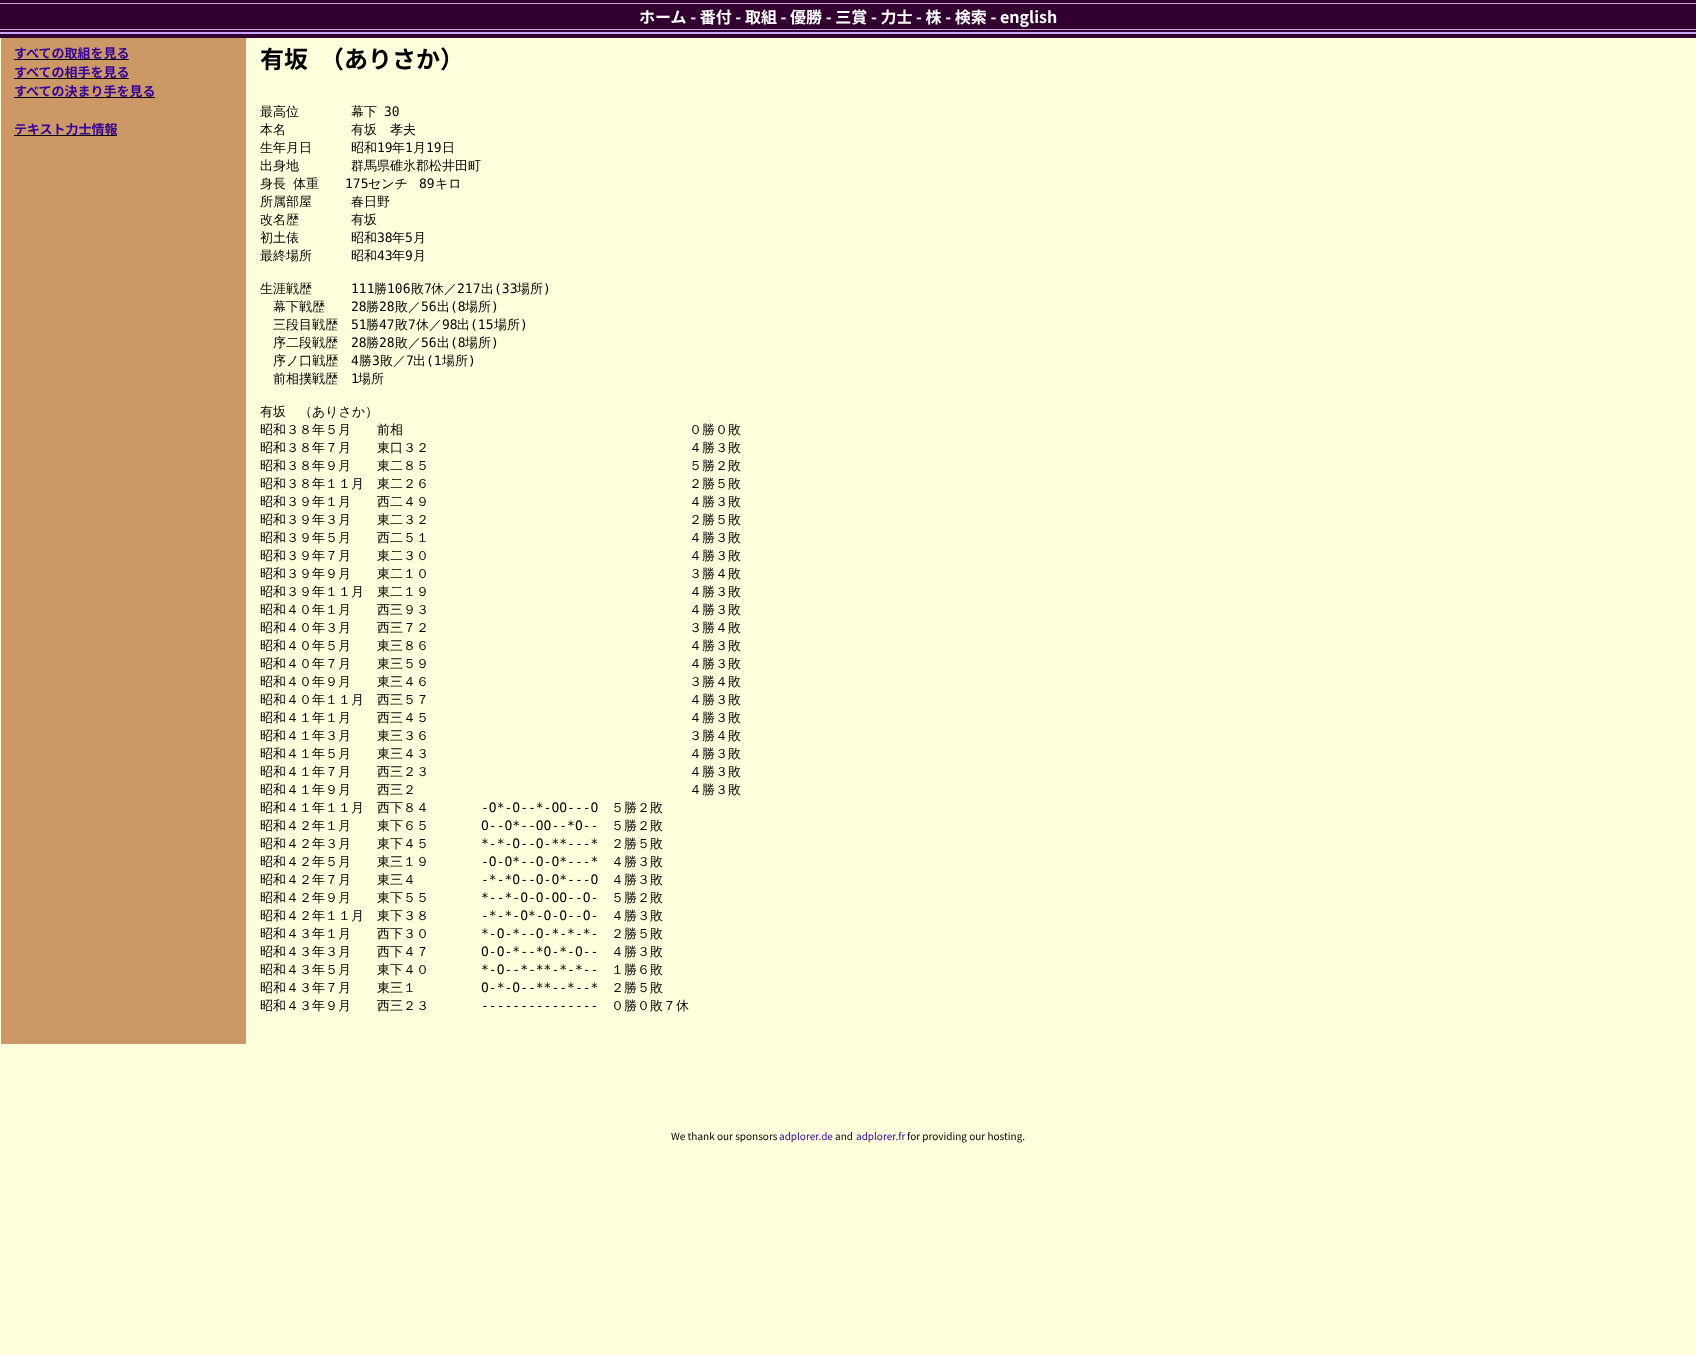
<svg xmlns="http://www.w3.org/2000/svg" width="1696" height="1355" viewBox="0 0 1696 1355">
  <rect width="100%" height="100%" fill="#ffffde"/>
  <rect x="0" y="0" width="1696" height="38" fill="#310031"/>
  <rect x="0" y="32" width="1696" height="2" fill="#cda5ff"/>
  <rect x="0" y="3" width="1696" height="1" fill="#cda5ff"/>
  <rect x="0" y="29" width="1696" height="1" fill="#cda5ff"/>
  <text x="639" y="23" font-family="Noto Sans CJK JP" font-size="16" font-weight="bold" fill="#ffffff">ホーム - 番付 - 取組 - 優勝 - 三賞 - 力士 - 株 - 検索 - english</text>
  <rect x="1" y="38" width="245" height="1006" fill="#cc9966"/>
  <rect x="14" y="59" width="115" height="1" fill="#000000"/>
  <text x="14" y="58" font-family="Noto Sans CJK JP" font-size="13" font-weight="bold" fill="#330099">すべての取組を見る</text>
  <rect x="14" y="78" width="115" height="1" fill="#000000"/>
  <text x="14" y="77" font-family="Noto Sans CJK JP" font-size="13" font-weight="bold" fill="#330099">すべての相手を見る</text>
  <rect x="14" y="97" width="141" height="1" fill="#000000"/>
  <text x="14" y="96" font-family="Noto Sans CJK JP" font-size="13" font-weight="bold" fill="#330099">すべての決まり手を見る</text>
  <rect x="14" y="135" width="103" height="1" fill="#000000"/>
  <text x="14" y="134" font-family="Noto Sans CJK JP" font-size="13" font-weight="bold" fill="#330099">テキスト力士情報</text>
  <text x="260" y="68" font-family="Noto Sans CJK JP" font-size="24" font-weight="bold" fill="#000000">有坂　（ありさか）</text>
  <text x="260" y="116" font-family="WenQuanYi Zen Hei" font-size="13" font-weight="500" fill="#000000">最高位　　　　幕下</text>
  <text x="384" y="116" font-family="DejaVu Sans Mono" font-size="13" fill="#000000">30</text>
  <text x="260" y="134" font-family="WenQuanYi Zen Hei" font-size="13" font-weight="500" fill="#000000">本名　　　　　有坂　孝夫</text>
  <text x="260" y="152" font-family="WenQuanYi Zen Hei" font-size="13" font-weight="500" fill="#000000">生年月日　　　昭和</text>
  <text x="377" y="152" font-family="DejaVu Sans Mono" font-size="13" fill="#000000">19</text>
  <text x="392" y="152" font-family="WenQuanYi Zen Hei" font-size="13" font-weight="500" fill="#000000">年</text>
  <text x="405" y="152" font-family="DejaVu Sans Mono" font-size="13" fill="#000000">1</text>
  <text x="413" y="152" font-family="WenQuanYi Zen Hei" font-size="13" font-weight="500" fill="#000000">月</text>
  <text x="426" y="152" font-family="DejaVu Sans Mono" font-size="13" fill="#000000">19</text>
  <text x="442" y="152" font-family="WenQuanYi Zen Hei" font-size="13" font-weight="500" fill="#000000">日</text>
  <text x="260" y="170" font-family="WenQuanYi Zen Hei" font-size="13" font-weight="500" fill="#000000">出身地　　　　群馬県碓氷郡松井田町</text>
  <text x="260" y="188" word-spacing="3" font-family="WenQuanYi Zen Hei" font-size="13" font-weight="500" fill="#000000">身長 体重</text>
  <text x="345" y="188" font-family="DejaVu Sans Mono" font-size="13" fill="#000000">175</text>
  <text x="368" y="188" font-family="WenQuanYi Zen Hei" font-size="13" font-weight="500" fill="#000000">センチ</text>
  <text x="419" y="188" font-family="DejaVu Sans Mono" font-size="13" fill="#000000">89</text>
  <text x="435" y="188" font-family="WenQuanYi Zen Hei" font-size="13" font-weight="500" fill="#000000">キロ</text>
  <text x="260" y="206" font-family="WenQuanYi Zen Hei" font-size="13" font-weight="500" fill="#000000">所属部屋　　　春日野</text>
  <text x="260" y="224" font-family="WenQuanYi Zen Hei" font-size="13" font-weight="500" fill="#000000">改名歴　　　　有坂</text>
  <text x="260" y="242" font-family="WenQuanYi Zen Hei" font-size="13" font-weight="500" fill="#000000">初土俵　　　　昭和</text>
  <text x="377" y="242" font-family="DejaVu Sans Mono" font-size="13" fill="#000000">38</text>
  <text x="392" y="242" font-family="WenQuanYi Zen Hei" font-size="13" font-weight="500" fill="#000000">年</text>
  <text x="405" y="242" font-family="DejaVu Sans Mono" font-size="13" fill="#000000">5</text>
  <text x="413" y="242" font-family="WenQuanYi Zen Hei" font-size="13" font-weight="500" fill="#000000">月</text>
  <text x="260" y="260" font-family="WenQuanYi Zen Hei" font-size="13" font-weight="500" fill="#000000">最終場所　　　昭和</text>
  <text x="377" y="260" font-family="DejaVu Sans Mono" font-size="13" fill="#000000">43</text>
  <text x="392" y="260" font-family="WenQuanYi Zen Hei" font-size="13" font-weight="500" fill="#000000">年</text>
  <text x="405" y="260" font-family="DejaVu Sans Mono" font-size="13" fill="#000000">9</text>
  <text x="413" y="260" font-family="WenQuanYi Zen Hei" font-size="13" font-weight="500" fill="#000000">月</text>
  <text x="260" y="293" font-family="WenQuanYi Zen Hei" font-size="13" font-weight="500" fill="#000000">生涯戦歴</text>
  <text x="351" y="293" font-family="DejaVu Sans Mono" font-size="13" fill="#000000">111</text>
  <text x="374" y="293" font-family="WenQuanYi Zen Hei" font-size="13" font-weight="500" fill="#000000">勝</text>
  <text x="387" y="293" font-family="DejaVu Sans Mono" font-size="13" fill="#000000">106</text>
  <text x="411" y="293" font-family="WenQuanYi Zen Hei" font-size="13" font-weight="500" fill="#000000">敗</text>
  <text x="424" y="293" font-family="DejaVu Sans Mono" font-size="13" fill="#000000">7</text>
  <text x="431" y="293" font-family="WenQuanYi Zen Hei" font-size="13" font-weight="500" fill="#000000">休／</text>
  <text x="457" y="293" font-family="DejaVu Sans Mono" font-size="13" fill="#000000">217</text>
  <text x="481" y="293" font-family="WenQuanYi Zen Hei" font-size="13" font-weight="500" fill="#000000">出</text>
  <text x="494" y="293" font-family="DejaVu Sans Mono" font-size="13" fill="#000000">(33</text>
  <text x="517" y="293" font-family="WenQuanYi Zen Hei" font-size="13" font-weight="500" fill="#000000">場所</text>
  <text x="543" y="293" font-family="DejaVu Sans Mono" font-size="13" fill="#000000">)</text>
  <text x="273" y="311" font-family="WenQuanYi Zen Hei" font-size="13" font-weight="500" fill="#000000">幕下戦歴</text>
  <text x="351" y="311" font-family="DejaVu Sans Mono" font-size="13" fill="#000000">28</text>
  <text x="366" y="311" font-family="WenQuanYi Zen Hei" font-size="13" font-weight="500" fill="#000000">勝</text>
  <text x="379" y="311" font-family="DejaVu Sans Mono" font-size="13" fill="#000000">28</text>
  <text x="395" y="311" font-family="WenQuanYi Zen Hei" font-size="13" font-weight="500" fill="#000000">敗／</text>
  <text x="421" y="311" font-family="DejaVu Sans Mono" font-size="13" fill="#000000">56</text>
  <text x="437" y="311" font-family="WenQuanYi Zen Hei" font-size="13" font-weight="500" fill="#000000">出</text>
  <text x="450" y="311" font-family="DejaVu Sans Mono" font-size="13" fill="#000000">(8</text>
  <text x="465" y="311" font-family="WenQuanYi Zen Hei" font-size="13" font-weight="500" fill="#000000">場所</text>
  <text x="491" y="311" font-family="DejaVu Sans Mono" font-size="13" fill="#000000">)</text>
  <text x="273" y="329" font-family="WenQuanYi Zen Hei" font-size="13" font-weight="500" fill="#000000">三段目戦歴</text>
  <text x="351" y="329" font-family="DejaVu Sans Mono" font-size="13" fill="#000000">51</text>
  <text x="366" y="329" font-family="WenQuanYi Zen Hei" font-size="13" font-weight="500" fill="#000000">勝</text>
  <text x="379" y="329" font-family="DejaVu Sans Mono" font-size="13" fill="#000000">47</text>
  <text x="395" y="329" font-family="WenQuanYi Zen Hei" font-size="13" font-weight="500" fill="#000000">敗</text>
  <text x="408" y="329" font-family="DejaVu Sans Mono" font-size="13" fill="#000000">7</text>
  <text x="416" y="329" font-family="WenQuanYi Zen Hei" font-size="13" font-weight="500" fill="#000000">休／</text>
  <text x="442" y="329" font-family="DejaVu Sans Mono" font-size="13" fill="#000000">98</text>
  <text x="457" y="329" font-family="WenQuanYi Zen Hei" font-size="13" font-weight="500" fill="#000000">出</text>
  <text x="470" y="329" font-family="DejaVu Sans Mono" font-size="13" fill="#000000">(15</text>
  <text x="494" y="329" font-family="WenQuanYi Zen Hei" font-size="13" font-weight="500" fill="#000000">場所</text>
  <text x="520" y="329" font-family="DejaVu Sans Mono" font-size="13" fill="#000000">)</text>
  <text x="273" y="347" font-family="WenQuanYi Zen Hei" font-size="13" font-weight="500" fill="#000000">序二段戦歴</text>
  <text x="351" y="347" font-family="DejaVu Sans Mono" font-size="13" fill="#000000">28</text>
  <text x="366" y="347" font-family="WenQuanYi Zen Hei" font-size="13" font-weight="500" fill="#000000">勝</text>
  <text x="379" y="347" font-family="DejaVu Sans Mono" font-size="13" fill="#000000">28</text>
  <text x="395" y="347" font-family="WenQuanYi Zen Hei" font-size="13" font-weight="500" fill="#000000">敗／</text>
  <text x="421" y="347" font-family="DejaVu Sans Mono" font-size="13" fill="#000000">56</text>
  <text x="437" y="347" font-family="WenQuanYi Zen Hei" font-size="13" font-weight="500" fill="#000000">出</text>
  <text x="450" y="347" font-family="DejaVu Sans Mono" font-size="13" fill="#000000">(8</text>
  <text x="465" y="347" font-family="WenQuanYi Zen Hei" font-size="13" font-weight="500" fill="#000000">場所</text>
  <text x="491" y="347" font-family="DejaVu Sans Mono" font-size="13" fill="#000000">)</text>
  <text x="273" y="365" font-family="WenQuanYi Zen Hei" font-size="13" font-weight="500" fill="#000000">序ノ口戦歴</text>
  <text x="351" y="365" font-family="DejaVu Sans Mono" font-size="13" fill="#000000">4</text>
  <text x="359" y="365" font-family="WenQuanYi Zen Hei" font-size="13" font-weight="500" fill="#000000">勝</text>
  <text x="372" y="365" font-family="DejaVu Sans Mono" font-size="13" fill="#000000">3</text>
  <text x="380" y="365" font-family="WenQuanYi Zen Hei" font-size="13" font-weight="500" fill="#000000">敗／</text>
  <text x="406" y="365" font-family="DejaVu Sans Mono" font-size="13" fill="#000000">7</text>
  <text x="413" y="365" font-family="WenQuanYi Zen Hei" font-size="13" font-weight="500" fill="#000000">出</text>
  <text x="426" y="365" font-family="DejaVu Sans Mono" font-size="13" fill="#000000">(1</text>
  <text x="442" y="365" font-family="WenQuanYi Zen Hei" font-size="13" font-weight="500" fill="#000000">場所</text>
  <text x="468" y="365" font-family="DejaVu Sans Mono" font-size="13" fill="#000000">)</text>
  <text x="273" y="383" font-family="WenQuanYi Zen Hei" font-size="13" font-weight="500" fill="#000000">前相撲戦歴</text>
  <text x="351" y="383" font-family="DejaVu Sans Mono" font-size="13" fill="#000000">1</text>
  <text x="358" y="383" font-family="WenQuanYi Zen Hei" font-size="13" font-weight="500" fill="#000000">場所</text>
  <text x="260" y="416" font-family="WenQuanYi Zen Hei" font-size="13" font-weight="500" fill="#000000">有坂　（ありさか）</text>
  <text x="260" y="434" font-family="WenQuanYi Zen Hei" font-size="13" font-weight="500" fill="#000000">昭和３８年５月　　前相　　　　　　　　　　　　　　　　　　　　　　０勝０敗</text>
  <text x="260" y="452" font-family="WenQuanYi Zen Hei" font-size="13" font-weight="500" fill="#000000">昭和３８年７月　　東口３２　　　　　　　　　　　　　　　　　　　　４勝３敗</text>
  <text x="260" y="470" font-family="WenQuanYi Zen Hei" font-size="13" font-weight="500" fill="#000000">昭和３８年９月　　東二８５　　　　　　　　　　　　　　　　　　　　５勝２敗</text>
  <text x="260" y="488" font-family="WenQuanYi Zen Hei" font-size="13" font-weight="500" fill="#000000">昭和３８年１１月　東二２６　　　　　　　　　　　　　　　　　　　　２勝５敗</text>
  <text x="260" y="506" font-family="WenQuanYi Zen Hei" font-size="13" font-weight="500" fill="#000000">昭和３９年１月　　西二４９　　　　　　　　　　　　　　　　　　　　４勝３敗</text>
  <text x="260" y="524" font-family="WenQuanYi Zen Hei" font-size="13" font-weight="500" fill="#000000">昭和３９年３月　　東二３２　　　　　　　　　　　　　　　　　　　　２勝５敗</text>
  <text x="260" y="542" font-family="WenQuanYi Zen Hei" font-size="13" font-weight="500" fill="#000000">昭和３９年５月　　西二５１　　　　　　　　　　　　　　　　　　　　４勝３敗</text>
  <text x="260" y="560" font-family="WenQuanYi Zen Hei" font-size="13" font-weight="500" fill="#000000">昭和３９年７月　　東二３０　　　　　　　　　　　　　　　　　　　　４勝３敗</text>
  <text x="260" y="578" font-family="WenQuanYi Zen Hei" font-size="13" font-weight="500" fill="#000000">昭和３９年９月　　東二１０　　　　　　　　　　　　　　　　　　　　３勝４敗</text>
  <text x="260" y="596" font-family="WenQuanYi Zen Hei" font-size="13" font-weight="500" fill="#000000">昭和３９年１１月　東二１９　　　　　　　　　　　　　　　　　　　　４勝３敗</text>
  <text x="260" y="614" font-family="WenQuanYi Zen Hei" font-size="13" font-weight="500" fill="#000000">昭和４０年１月　　西三９３　　　　　　　　　　　　　　　　　　　　４勝３敗</text>
  <text x="260" y="632" font-family="WenQuanYi Zen Hei" font-size="13" font-weight="500" fill="#000000">昭和４０年３月　　西三７２　　　　　　　　　　　　　　　　　　　　３勝４敗</text>
  <text x="260" y="650" font-family="WenQuanYi Zen Hei" font-size="13" font-weight="500" fill="#000000">昭和４０年５月　　東三８６　　　　　　　　　　　　　　　　　　　　４勝３敗</text>
  <text x="260" y="668" font-family="WenQuanYi Zen Hei" font-size="13" font-weight="500" fill="#000000">昭和４０年７月　　東三５９　　　　　　　　　　　　　　　　　　　　４勝３敗</text>
  <text x="260" y="686" font-family="WenQuanYi Zen Hei" font-size="13" font-weight="500" fill="#000000">昭和４０年９月　　東三４６　　　　　　　　　　　　　　　　　　　　３勝４敗</text>
  <text x="260" y="704" font-family="WenQuanYi Zen Hei" font-size="13" font-weight="500" fill="#000000">昭和４０年１１月　西三５７　　　　　　　　　　　　　　　　　　　　４勝３敗</text>
  <text x="260" y="722" font-family="WenQuanYi Zen Hei" font-size="13" font-weight="500" fill="#000000">昭和４１年１月　　西三４５　　　　　　　　　　　　　　　　　　　　４勝３敗</text>
  <text x="260" y="740" font-family="WenQuanYi Zen Hei" font-size="13" font-weight="500" fill="#000000">昭和４１年３月　　東三３６　　　　　　　　　　　　　　　　　　　　３勝４敗</text>
  <text x="260" y="758" font-family="WenQuanYi Zen Hei" font-size="13" font-weight="500" fill="#000000">昭和４１年５月　　東三４３　　　　　　　　　　　　　　　　　　　　４勝３敗</text>
  <text x="260" y="776" font-family="WenQuanYi Zen Hei" font-size="13" font-weight="500" fill="#000000">昭和４１年７月　　西三２３　　　　　　　　　　　　　　　　　　　　４勝３敗</text>
  <text x="260" y="794" font-family="WenQuanYi Zen Hei" font-size="13" font-weight="500" fill="#000000">昭和４１年９月　　西三２　　　　　　　　　　　　　　　　　　　　　４勝３敗</text>
  <text x="260" y="812" font-family="WenQuanYi Zen Hei" font-size="13" font-weight="500" fill="#000000">昭和４１年１１月　西下８４</text>
  <text x="481" y="812" font-family="DejaVu Sans Mono" font-size="13" fill="#000000">-O*-O--*-OO---O</text>
  <text x="611" y="812" font-family="WenQuanYi Zen Hei" font-size="13" font-weight="500" fill="#000000">５勝２敗</text>
  <text x="260" y="830" font-family="WenQuanYi Zen Hei" font-size="13" font-weight="500" fill="#000000">昭和４２年１月　　東下６５</text>
  <text x="481" y="830" font-family="DejaVu Sans Mono" font-size="13" fill="#000000">O--O*--OO--*O--</text>
  <text x="611" y="830" font-family="WenQuanYi Zen Hei" font-size="13" font-weight="500" fill="#000000">５勝２敗</text>
  <text x="260" y="848" font-family="WenQuanYi Zen Hei" font-size="13" font-weight="500" fill="#000000">昭和４２年３月　　東下４５</text>
  <text x="481" y="848" font-family="DejaVu Sans Mono" font-size="13" fill="#000000">*-*-O--O-**---*</text>
  <text x="611" y="848" font-family="WenQuanYi Zen Hei" font-size="13" font-weight="500" fill="#000000">２勝５敗</text>
  <text x="260" y="866" font-family="WenQuanYi Zen Hei" font-size="13" font-weight="500" fill="#000000">昭和４２年５月　　東三１９</text>
  <text x="481" y="866" font-family="DejaVu Sans Mono" font-size="13" fill="#000000">-O-O*--O-O*---*</text>
  <text x="611" y="866" font-family="WenQuanYi Zen Hei" font-size="13" font-weight="500" fill="#000000">４勝３敗</text>
  <text x="260" y="884" font-family="WenQuanYi Zen Hei" font-size="13" font-weight="500" fill="#000000">昭和４２年７月　　東三４</text>
  <text x="481" y="884" font-family="DejaVu Sans Mono" font-size="13" fill="#000000">-*-*O--O-O*---O</text>
  <text x="611" y="884" font-family="WenQuanYi Zen Hei" font-size="13" font-weight="500" fill="#000000">４勝３敗</text>
  <text x="260" y="902" font-family="WenQuanYi Zen Hei" font-size="13" font-weight="500" fill="#000000">昭和４２年９月　　東下５５</text>
  <text x="481" y="902" font-family="DejaVu Sans Mono" font-size="13" fill="#000000">*--*-O-O-OO--O-</text>
  <text x="611" y="902" font-family="WenQuanYi Zen Hei" font-size="13" font-weight="500" fill="#000000">５勝２敗</text>
  <text x="260" y="920" font-family="WenQuanYi Zen Hei" font-size="13" font-weight="500" fill="#000000">昭和４２年１１月　東下３８</text>
  <text x="481" y="920" font-family="DejaVu Sans Mono" font-size="13" fill="#000000">-*-*-O*-O-O--O-</text>
  <text x="611" y="920" font-family="WenQuanYi Zen Hei" font-size="13" font-weight="500" fill="#000000">４勝３敗</text>
  <text x="260" y="938" font-family="WenQuanYi Zen Hei" font-size="13" font-weight="500" fill="#000000">昭和４３年１月　　西下３０</text>
  <text x="481" y="938" font-family="DejaVu Sans Mono" font-size="13" fill="#000000">*-O-*--O-*-*-*-</text>
  <text x="611" y="938" font-family="WenQuanYi Zen Hei" font-size="13" font-weight="500" fill="#000000">２勝５敗</text>
  <text x="260" y="956" font-family="WenQuanYi Zen Hei" font-size="13" font-weight="500" fill="#000000">昭和４３年３月　　西下４７</text>
  <text x="481" y="956" font-family="DejaVu Sans Mono" font-size="13" fill="#000000">O-O-*--*O-*-O--</text>
  <text x="611" y="956" font-family="WenQuanYi Zen Hei" font-size="13" font-weight="500" fill="#000000">４勝３敗</text>
  <text x="260" y="974" font-family="WenQuanYi Zen Hei" font-size="13" font-weight="500" fill="#000000">昭和４３年５月　　東下４０</text>
  <text x="481" y="974" font-family="DejaVu Sans Mono" font-size="13" fill="#000000">*-O--*-**-*-*--</text>
  <text x="611" y="974" font-family="WenQuanYi Zen Hei" font-size="13" font-weight="500" fill="#000000">１勝６敗</text>
  <text x="260" y="992" font-family="WenQuanYi Zen Hei" font-size="13" font-weight="500" fill="#000000">昭和４３年７月　　東三１</text>
  <text x="481" y="992" font-family="DejaVu Sans Mono" font-size="13" fill="#000000">O-*-O--**--*--*</text>
  <text x="611" y="992" font-family="WenQuanYi Zen Hei" font-size="13" font-weight="500" fill="#000000">２勝５敗</text>
  <text x="260" y="1010" font-family="WenQuanYi Zen Hei" font-size="13" font-weight="500" fill="#000000">昭和４３年９月　　西三２３</text>
  <text x="481" y="1010" font-family="DejaVu Sans Mono" font-size="13" fill="#000000">---------------</text>
  <text x="611" y="1010" font-family="WenQuanYi Zen Hei" font-size="13" font-weight="500" fill="#000000">０勝０敗７休</text>
  <text x="671" y="1140" font-family="Noto Sans CJK JP" font-size="10" fill="#000000">We thank our sponsors</text>
  <text x="779" y="1140" font-family="Noto Sans CJK JP" font-size="10" fill="#330099">adplorer.de</text>
  <text x="835" y="1140" font-family="Noto Sans CJK JP" font-size="10" fill="#000000">and</text>
  <text x="856" y="1140" font-family="Noto Sans CJK JP" font-size="10" fill="#330099">adplorer.fr</text>
  <text x="907" y="1140" font-family="Noto Sans CJK JP" font-size="10" fill="#000000">for providing our hosting.</text>
</svg>
